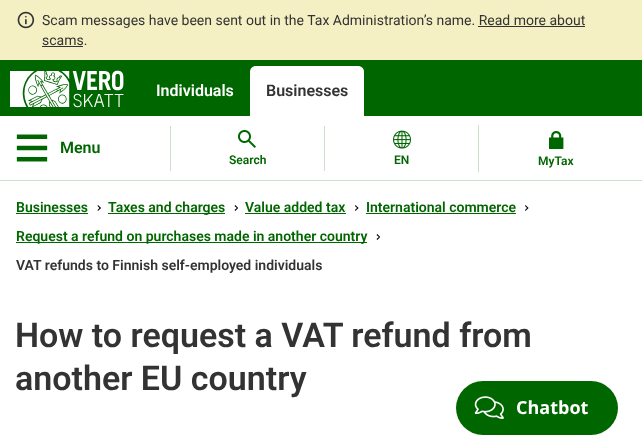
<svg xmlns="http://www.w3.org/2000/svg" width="642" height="440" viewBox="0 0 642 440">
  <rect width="100%" height="100%" fill="#ffffff"/>
  <rect x="0" y="0" width="642" height="60" fill="#f5f0c3"/>
  <image x="17" y="11" width="18" height="18" href="img1.png"/>
  <text x="42" y="25" font-family="Roboto" font-size="14" fill="#333333">Scam messages have been sent out in the Tax Administration’s name. Read more about</text>
  <text x="42" y="45" font-family="Roboto" font-size="14" fill="#333333">scams.</text>
  <rect x="478" y="26" width="107" height="1" fill="#333333"/>
  <rect x="42" y="46" width="41" height="1" fill="#333333"/>
  <rect x="0" y="60" width="642" height="56" fill="#006600"/>
  <image x="10" y="70" width="114" height="38" href="img2.png"/>
  <text x="156" y="96" font-family="Roboto" font-size="16" font-weight="600" fill="#ffffff">Individuals</text>
  <path d="M256 66H358C361.5 66 364 68.5 364 72V116H250V72C250 68.5 252.5 66 256 66Z" fill="#ffffff"/>
  <text x="266" y="96" font-family="Roboto" font-size="16" font-weight="600" fill="#333333">Businesses</text>
  <rect x="0" y="180" width="642" height="1" fill="#ccdfcc"/>
  <image x="16" y="134" width="32" height="28" href="img3.png"/>
  <text x="60" y="153" font-family="Roboto" font-size="16" font-weight="600" fill="#006600">Menu</text>
  <rect x="170" y="126" width="1" height="45" fill="#ccdfcc"/>
  <image x="238" y="130" width="18" height="18" href="img4.png"/>
  <text x="229" y="164" font-family="Roboto" font-size="12" font-weight="600" fill="#006600">Search</text>
  <rect x="324" y="126" width="1" height="45" fill="#ccdfcc"/>
  <image x="393" y="130" width="18" height="19" href="img5.png"/>
  <text x="394" y="164" font-family="Roboto" font-size="12" font-weight="600" fill="#006600">EN</text>
  <rect x="478" y="125" width="1" height="47" fill="#ccdfcc"/>
  <image x="549" y="131" width="15" height="18" href="img6.png"/>
  <text x="538" y="165" font-family="Roboto" font-size="12" font-weight="600" fill="#006600">MyTax</text>
  <text x="16" y="212" font-family="Roboto" font-size="14" font-weight="600" fill="#006600">Businesses</text>
  <rect x="16" y="213" width="72" height="1" fill="#006600"/>
  <path d="M98 205L101 208L100 208.5L97.5 206Z" fill="#000000"/>
  <path d="M100 207.5L101 208L98 211L97.5 210Z" fill="#000000"/>
  <rect x="108" y="213" width="117" height="1" fill="#006600"/>
  <text x="108" y="212" font-family="Roboto" font-size="14" font-weight="600" fill="#006600">Taxes and charges</text>
  <path d="M235.5 205L238 208L237.5 208.5L234.5 206Z" fill="#000000"/>
  <path d="M237.5 207.5L238 208L235.5 211L234.5 210Z" fill="#000000"/>
  <text x="245" y="212" font-family="Roboto" font-size="14" font-weight="600" fill="#006600">Value added tax</text>
  <rect x="245" y="213" width="101" height="1" fill="#006600"/>
  <path d="M355.5 205L358.5 208L357.5 208.5L355 206Z" fill="#000000"/>
  <path d="M357.5 207.5L358.5 208L355.5 211L355 210Z" fill="#000000"/>
  <text x="366" y="212" font-family="Roboto" font-size="14" font-weight="600" fill="#006600">International commerce</text>
  <rect x="366" y="213" width="150" height="1" fill="#006600"/>
  <path d="M525.5 205L528.5 208L527.5 208.5L525 206Z" fill="#000000"/>
  <path d="M527.5 207.5L528.5 208L525.5 211L525 210Z" fill="#000000"/>
  <rect x="16" y="242" width="351" height="1" fill="#006600"/>
  <text x="16" y="241" font-family="Roboto" font-size="14" font-weight="600" fill="#006600">Request a refund on purchases made in another country</text>
  <path d="M377.5 234L380 237L379.5 237.5L376.5 235Z" fill="#000000"/>
  <path d="M379.5 236.5L380 237L377.5 240L376.5 239Z" fill="#000000"/>
  <text x="16" y="270" font-family="Roboto" font-size="14" font-weight="600" fill="#333333">VAT refunds to Finnish self-employed individuals</text>
  <text x="15" y="347" font-family="Roboto" font-size="34" font-weight="600" fill="#333333">How to request a VAT refund from</text>
  <text x="15" y="390" font-family="Roboto" font-size="34" font-weight="600" fill="#333333">another EU country</text>
  <rect x="456" y="381" width="162" height="54" rx="27" fill="#006600"/>
  <image x="474" y="396" width="30" height="23" href="img7.png"/>
  <text x="516" y="414" font-family="Open Sans" font-size="18" font-weight="bold" fill="#ffffff">Chatbot</text>
</svg>
